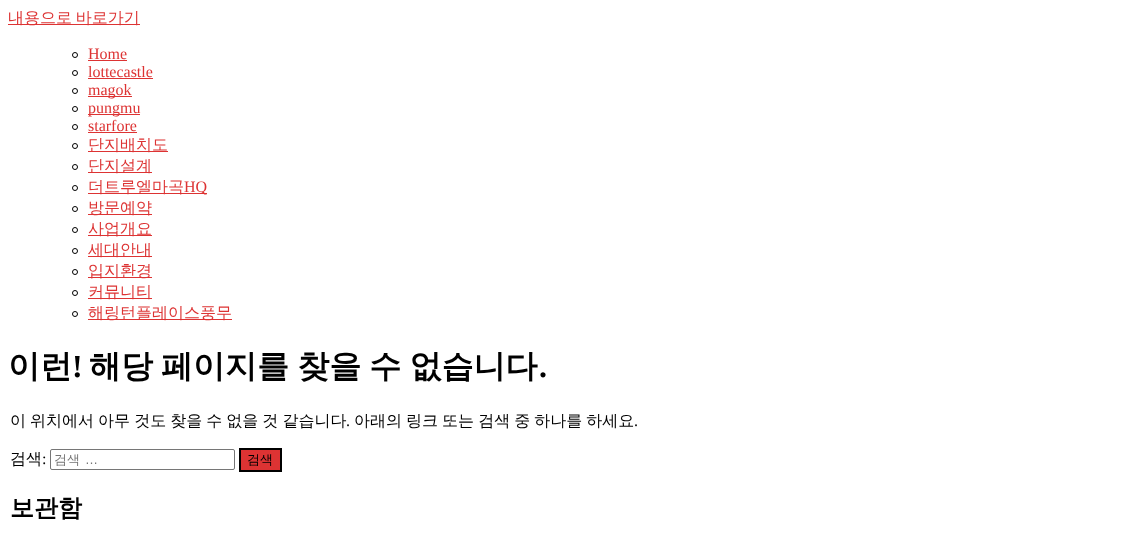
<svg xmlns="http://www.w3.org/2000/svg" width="1147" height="550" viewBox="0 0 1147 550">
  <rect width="100%" height="100%" fill="#ffffff"/>
  <rect x="8" y="24" width="132" height="1" fill="#dd3333"/>
  <text x="8" y="23" word-spacing="-1" font-family="WenQuanYi Zen Hei" font-size="16" font-weight="500" fill="#dd3333">내용으로 바로가기</text>
  <circle cx="75" cy="55" r="2.5" fill="none" stroke="#000000"/>
  <text x="88" y="59" font-family="Liberation Serif" font-size="16" fill="#dd3333">Home</text>
  <rect x="88" y="60" width="39" height="1" fill="#dd3333"/>
  <circle cx="75" cy="73" r="2.5" fill="none" stroke="#000000"/>
  <text x="88" y="77" font-family="Liberation Serif" font-size="16" fill="#dd3333">lottecastle</text>
  <rect x="88" y="78" width="65" height="1" fill="#dd3333"/>
  <circle cx="75" cy="91" r="2.5" fill="none" stroke="#000000"/>
  <rect x="88" y="96" width="44" height="1" fill="#dd3333"/>
  <text x="88" y="95" font-family="Liberation Serif" font-size="16" fill="#dd3333">magok</text>
  <circle cx="75" cy="109" r="2.5" fill="none" stroke="#000000"/>
  <rect x="88" y="114" width="52" height="1" fill="#dd3333"/>
  <text x="88" y="113" font-family="Liberation Serif" font-size="16" fill="#dd3333">pungmu</text>
  <circle cx="75" cy="127" r="2.5" fill="none" stroke="#000000"/>
  <text x="88" y="131" font-family="Liberation Serif" font-size="16" fill="#dd3333">starfore</text>
  <rect x="88" y="132" width="49" height="1" fill="#dd3333"/>
  <circle cx="75" cy="146" r="2.5" fill="none" stroke="#000000"/>
  <rect x="88" y="151" width="80" height="1" fill="#dd3333"/>
  <text x="88" y="150" font-family="WenQuanYi Zen Hei" font-size="16" font-weight="500" fill="#dd3333">단지배치도</text>
  <circle cx="75" cy="167" r="2.5" fill="none" stroke="#000000"/>
  <rect x="88" y="172" width="64" height="1" fill="#dd3333"/>
  <text x="88" y="171" font-family="WenQuanYi Zen Hei" font-size="16" font-weight="500" fill="#dd3333">단지설계</text>
  <circle cx="75" cy="188" r="2.5" fill="none" stroke="#000000"/>
  <rect x="88" y="193" width="119" height="1" fill="#dd3333"/>
  <text x="88" y="192" font-family="WenQuanYi Zen Hei" font-size="16" font-weight="500" fill="#dd3333">더트루엘마곡</text>
  <text x="184" y="192" font-family="Liberation Serif" font-size="16" fill="#dd3333">HQ</text>
  <circle cx="75" cy="209" r="2.5" fill="none" stroke="#000000"/>
  <rect x="88" y="214" width="64" height="1" fill="#dd3333"/>
  <text x="88" y="213" font-family="WenQuanYi Zen Hei" font-size="16" font-weight="500" fill="#dd3333">방문예약</text>
  <circle cx="75" cy="230" r="2.5" fill="none" stroke="#000000"/>
  <rect x="88" y="235" width="64" height="1" fill="#dd3333"/>
  <text x="88" y="234" font-family="WenQuanYi Zen Hei" font-size="16" font-weight="500" fill="#dd3333">사업개요</text>
  <circle cx="75" cy="251" r="2.5" fill="none" stroke="#000000"/>
  <rect x="88" y="256" width="64" height="1" fill="#dd3333"/>
  <text x="88" y="255" font-family="WenQuanYi Zen Hei" font-size="16" font-weight="500" fill="#dd3333">세대안내</text>
  <circle cx="75" cy="272" r="2.5" fill="none" stroke="#000000"/>
  <rect x="88" y="277" width="64" height="1" fill="#dd3333"/>
  <text x="88" y="276" font-family="WenQuanYi Zen Hei" font-size="16" font-weight="500" fill="#dd3333">입지환경</text>
  <circle cx="75" cy="293" r="2.5" fill="none" stroke="#000000"/>
  <rect x="88" y="298" width="64" height="1" fill="#dd3333"/>
  <text x="88" y="297" font-family="WenQuanYi Zen Hei" font-size="16" font-weight="500" fill="#dd3333">커뮤니티</text>
  <circle cx="75" cy="314" r="2.5" fill="none" stroke="#000000"/>
  <rect x="88" y="319" width="144" height="1" fill="#dd3333"/>
  <text x="88" y="318" font-family="WenQuanYi Zen Hei" font-size="16" font-weight="500" fill="#dd3333">해링턴플레이스풍무</text>
  <text x="8" y="377" font-family="WenQuanYi Zen Hei" font-size="32" font-weight="bold" fill="#000000">이런</text>
  <text x="72" y="377" font-family="Liberation Serif" font-size="32" font-weight="bold" fill="#000000">!</text>
  <text x="89" y="377" word-spacing="-1.5" font-family="WenQuanYi Zen Hei" font-size="32" font-weight="bold" fill="#000000">해당 페이지를 찾을 수 없습니다</text>
  <text x="539" y="377" font-family="Liberation Serif" font-size="32" font-weight="bold" fill="#000000">.</text>
  <text x="10" y="426" word-spacing="-0.75" font-family="WenQuanYi Zen Hei" font-size="16" font-weight="500" fill="#000000">이 위치에서 아무 것도 찾을 수 없을 것 같습니다</text>
  <text x="346" y="426" font-family="Liberation Serif" font-size="16" fill="#000000">.</text>
  <text x="354" y="426" word-spacing="-0.75" font-family="WenQuanYi Zen Hei" font-size="16" font-weight="500" fill="#000000">아래의 링크 또는 검색 중 하나를 하세요</text>
  <text x="634" y="426" font-family="Liberation Serif" font-size="16" fill="#000000">.</text>
  <text x="10" y="464" font-family="WenQuanYi Zen Hei" font-size="16" font-weight="500" fill="#000000">검색</text>
  <text x="42" y="464" font-family="Liberation Serif" font-size="16" fill="#000000">:</text>
  <rect x="50.5" y="449.5" width="184" height="20" rx="1.5" fill="none" stroke="#767676"/>
  <text x="54" y="464" font-family="WenQuanYi Zen Hei" font-size="13" font-weight="500" fill="#757575">검색</text>
  <text x="85" y="464" font-family="Liberation Sans" font-size="13" fill="#757575">…</text>
  <rect x="240" y="449" width="41" height="22" fill="#dd3333" stroke="#000000" stroke-width="2"/>
  <text x="247" y="464" font-family="WenQuanYi Zen Hei" font-size="13" font-weight="500" fill="#000000">검색</text>
  <text x="10" y="516" font-family="WenQuanYi Zen Hei" font-size="24" font-weight="bold" fill="#000000">보관함</text>
</svg>
